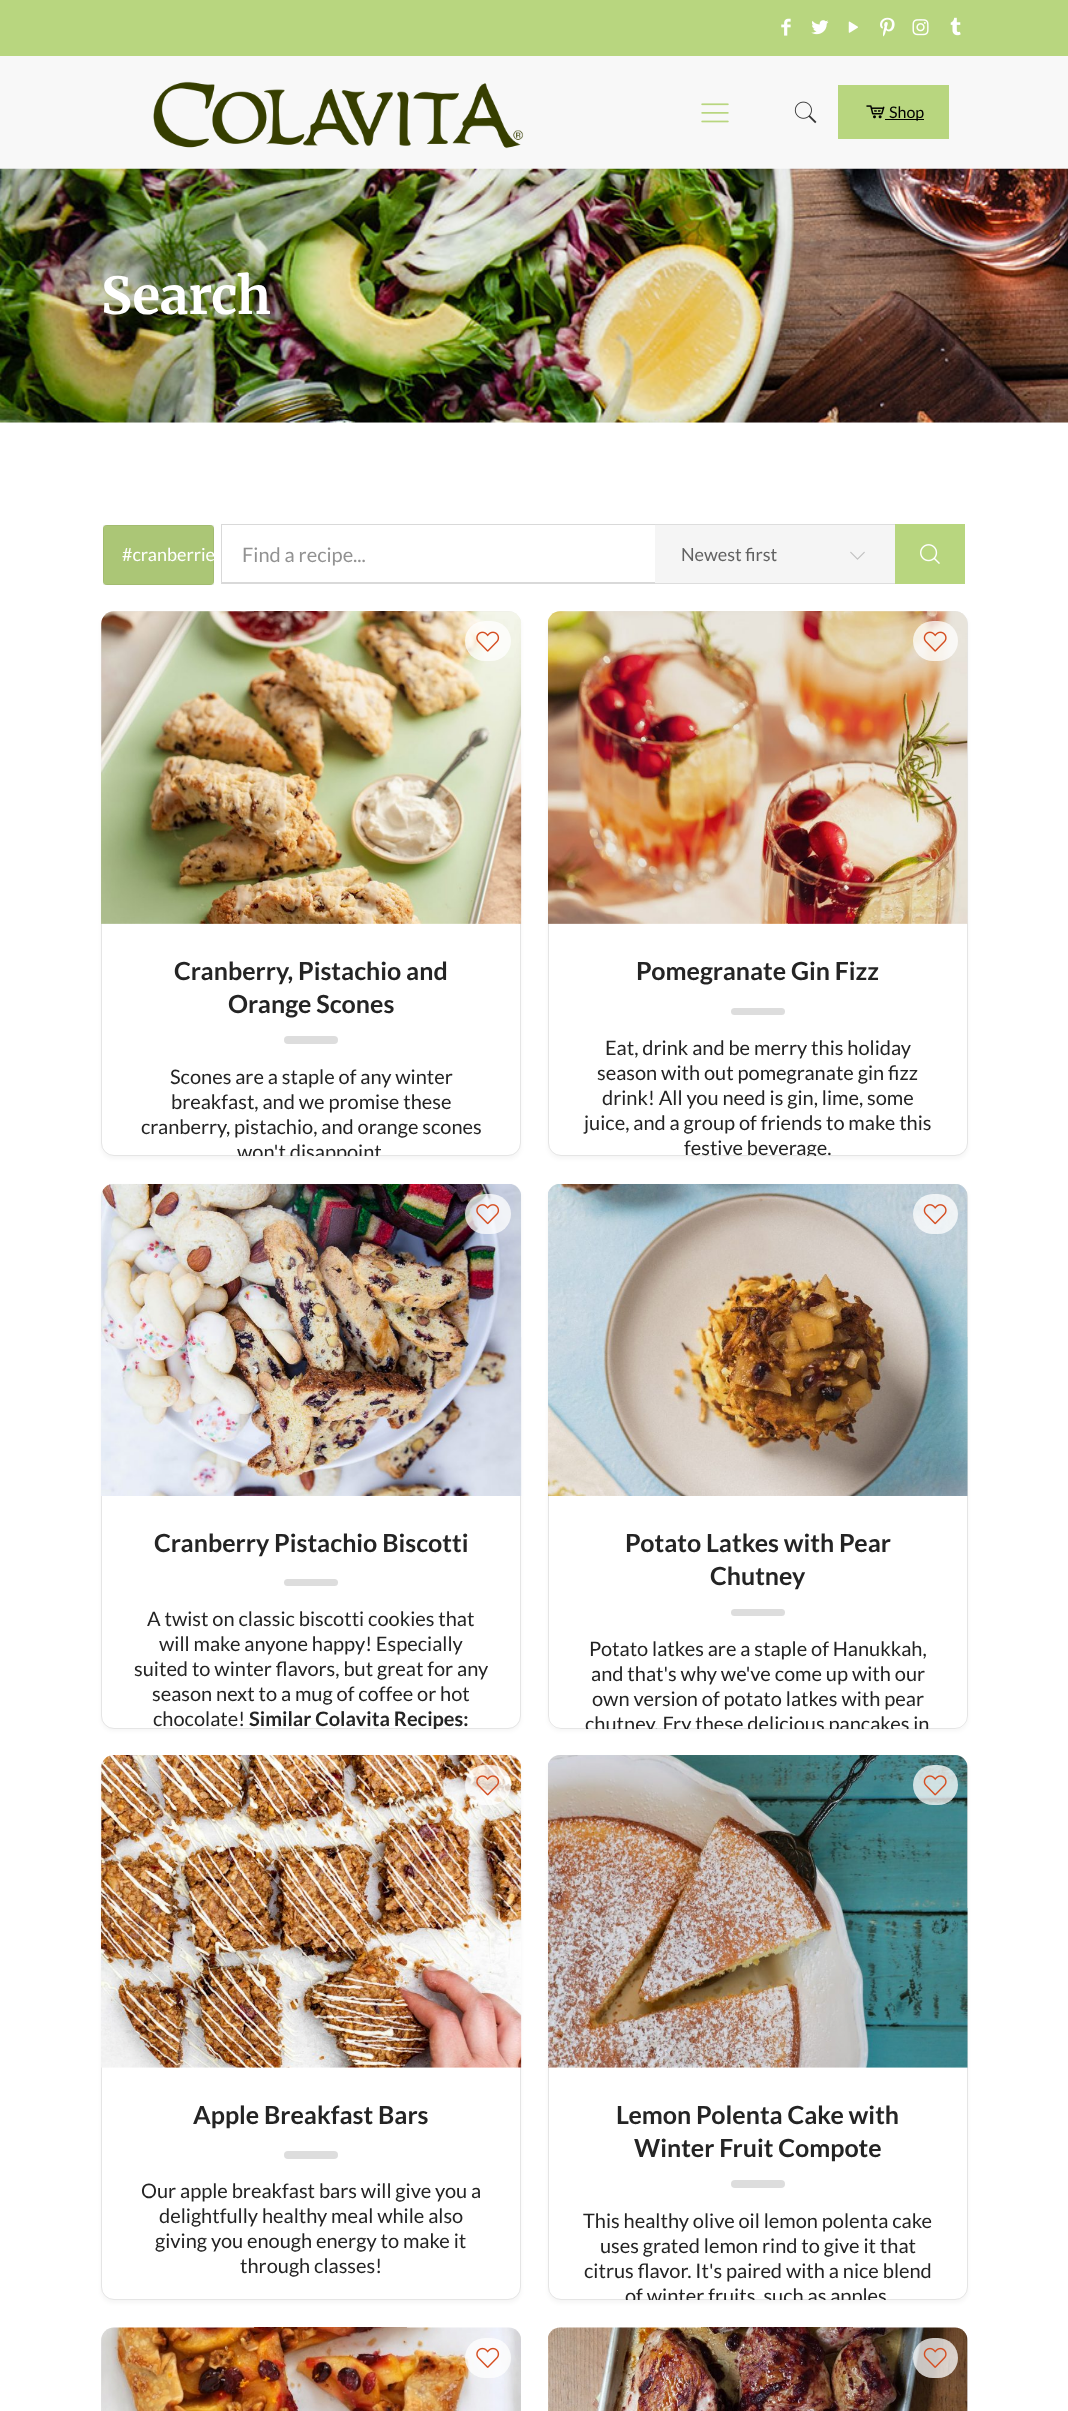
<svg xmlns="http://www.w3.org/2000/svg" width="1068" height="2411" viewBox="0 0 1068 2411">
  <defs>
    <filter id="blur1" x="-50%" y="-200%" width="200%" height="500%"><feGaussianBlur stdDeviation="2"/></filter>
    <clipPath id="clip1"><rect x="101" y="611" width="420" height="545" rx="13"/></clipPath>
    <clipPath id="clip2"><rect x="548" y="611" width="420" height="545" rx="13"/></clipPath>
    <clipPath id="clip3"><rect x="101" y="1184" width="420" height="545" rx="13"/></clipPath>
    <clipPath id="clip4"><rect x="548" y="1184" width="420" height="545" rx="13"/></clipPath>
    <clipPath id="clip5"><rect x="548" y="1755" width="420" height="545" rx="13"/></clipPath>
  </defs>
  <rect width="100%" height="100%" fill="#ffffff"/>
  <rect x="0" y="56" width="1068" height="367" fill="#f8f8f8"/>
  <rect x="0" y="0" width="1068" height="56" fill="#b8d67f"/>
  <image x="781" y="18" width="10" height="18" href="img1.png"/>
  <image x="811" y="20" width="18" height="15" href="img2.png"/>
  <image x="848" y="21" width="10" height="12" href="img3.png"/>
  <image x="880" y="17" width="15" height="20" href="img4.png"/>
  <image x="912" y="19" width="17" height="17" href="img5.png"/>
  <image x="950" y="17" width="11" height="19" href="img6.png"/>
  <image x="153" y="81" width="371" height="68" href="img7.png"/>
  <image x="701" y="103" width="28" height="20" href="img8.png"/>
  <image x="794" y="101" width="23" height="23" href="img9.png"/>
  <rect x="838" y="85" width="111" height="54" fill="#b8d67f"/>
  <image x="866" y="105" width="19" height="14" href="img10.png"/>
  <rect x="885" y="119" width="39" height="1" fill="#000000"/>
  <text x="889" y="118" font-family="Lato" font-size="16" fill="#000000">Shop</text>
  <image x="0" y="168" width="1068" height="255" href="img11.png"/>
  <text x="101" y="314" font-family="Merriweather" font-size="51" font-weight="bold" fill="#ffffff">Search</text>
  <rect x="103" y="525" width="111" height="60" rx="4" fill="#b8d67f"/>
  <image x="169" y="553" width="15" height="8" href="img12.png"/>
  <rect x="103" y="525" width="111" height="60" rx="4" fill="#000000" fill-opacity="0.07"/>
  <rect x="103.5" y="525.5" width="110" height="59" fill="none" stroke="#000000" stroke-opacity="0.05"/>
  <text x="122" y="561" font-family="Lato" font-size="18" fill="#ffffff">#cranberrie</text>
  <path d="M221 524H896V525H222Z" fill="#d9d9d9"/>
  <path d="M896 584H221L222 582H896Z" fill="#d9d9d9"/>
  <path d="M221 584V524L222 525V582Z" fill="#000000" fill-opacity="0.15"/>
  <text x="242" y="562" font-family="Lato" font-size="20" fill="#929292">Find a recipe...</text>
  <rect x="895" y="524" width="70" height="60" fill="#b8d67f"/>
  <image x="920" y="544" width="20" height="20" href="img13.png"/>
  <rect x="655" y="525" width="240" height="58" fill="#f5f5f5"/>
  <rect x="655" y="524" width="240" height="1" fill="#dddddd"/>
  <rect x="655" y="583" width="240" height="1" fill="#dddddd"/>
  <text x="681" y="561" font-family="Lato" font-size="18" fill="#626262">Newest first</text>
  <image x="850" y="551" width="15" height="9" href="img14.png"/>
  <rect x="101" y="614" width="420" height="545" rx="13" fill="#000000" fill-opacity="0.04" filter="url(#blur1)"/>
  <rect x="101.5" y="611.5" width="419" height="544" rx="12.5" fill="#ffffff" stroke="#e5e5e5"/>
  <image x="101" y="611" width="421" height="313" href="img15.png"/>
  <rect x="465" y="621" width="46" height="40" rx="20" fill="#ffffff" fill-opacity="0.75"/>
  <image x="476" y="631" width="24" height="21" href="img16.png"/>
  <text x="174" y="980" font-family="Lato" font-size="25" font-weight="bold" fill="#242424">Cranberry, Pistachio and</text>
  <text x="228" y="1013" font-family="Lato" font-size="25" font-weight="bold" fill="#242424">Orange Scones</text>
  <rect x="284" y="1036" width="54" height="8" rx="4" fill="#dddddd"/>
  <text x="170" y="1084" font-family="Lato" font-size="20" fill="#242424">Scones are a staple of any winter</text>
  <text x="171" y="1109" font-family="Lato" font-size="20" fill="#242424">breakfast, and we promise these</text>
  <text x="141" y="1134" font-family="Lato" font-size="20" fill="#242424">cranberry, pistachio, and orange scones</text>
  <g clip-path="url(#clip1)">
    <text x="237" y="1159" font-family="Lato" font-size="20" fill="#242424">won't disappoint</text>
  </g>
  <rect x="548" y="614" width="420" height="545" rx="13" fill="#000000" fill-opacity="0.04" filter="url(#blur1)"/>
  <rect x="548.5" y="611.5" width="419" height="544" rx="12.5" fill="#ffffff" stroke="#e5e5e5"/>
  <image x="548" y="611" width="420" height="313" href="img17.png"/>
  <rect x="913" y="621" width="45" height="40" rx="20" fill="#ffffff" fill-opacity="0.75"/>
  <image x="923" y="631" width="24" height="21" href="img18.png"/>
  <text x="636" y="980" font-family="Lato" font-size="25" font-weight="bold" fill="#242424">Pomegranate Gin Fizz</text>
  <rect x="731" y="1008" width="54" height="7" rx="3.5" fill="#dddddd"/>
  <text x="605" y="1055" font-family="Lato" font-size="20" fill="#242424">Eat, drink and be merry this holiday</text>
  <text x="597" y="1080" font-family="Lato" font-size="20" fill="#242424">season with out pomegranate gin fizz</text>
  <text x="602" y="1105" font-family="Lato" font-size="20" fill="#242424">drink! All you need is gin, lime, some</text>
  <text x="584" y="1130" font-family="Lato" font-size="20" fill="#242424">juice, and a group of friends to make this</text>
  <g clip-path="url(#clip2)">
    <text x="684" y="1155" font-family="Lato" font-size="20" fill="#242424">festive beverage.</text>
  </g>
  <rect x="101" y="1186" width="420" height="545" rx="13" fill="#000000" fill-opacity="0.04" filter="url(#blur1)"/>
  <rect x="101.5" y="1184.5" width="419" height="544" rx="12.5" fill="#ffffff" stroke="#e5e5e5"/>
  <image x="101" y="1184" width="421" height="312" href="img19.png"/>
  <rect x="465" y="1194" width="46" height="40" rx="20" fill="#ffffff" fill-opacity="0.75"/>
  <image x="476" y="1204" width="24" height="21" href="img20.png"/>
  <text x="154" y="1552" font-family="Lato" font-size="25" font-weight="bold" fill="#242424">Cranberry Pistachio Biscotti</text>
  <rect x="284" y="1579" width="54" height="7" rx="3.5" fill="#dddddd"/>
  <text x="147" y="1626" font-family="Lato" font-size="20" fill="#242424">A twist on classic biscotti cookies that</text>
  <text x="159" y="1651" font-family="Lato" font-size="20" fill="#242424">will make anyone happy! Especially</text>
  <text x="134" y="1676" font-family="Lato" font-size="20" fill="#242424">suited to winter flavors, but great for any</text>
  <text x="152" y="1701" font-family="Lato" font-size="20" fill="#242424">season next to a mug of coffee or hot</text>
  <text x="153" y="1726" font-family="Lato" font-size="20" fill="#242424">chocolate!</text>
  <g clip-path="url(#clip3)">
    <text x="249" y="1726" font-family="Lato" font-size="20" font-weight="bold" fill="#242424">Similar Colavita Recipes:</text>
  </g>
  <rect x="548" y="1186" width="420" height="545" rx="13" fill="#000000" fill-opacity="0.04" filter="url(#blur1)"/>
  <rect x="548" y="1184" width="420" height="545" rx="13" fill="#ffffff"/>
  <rect x="548.5" y="1184.5" width="419" height="544" rx="12.5" fill="none" stroke="#000000" stroke-opacity="0.1"/>
  <image x="548" y="1184" width="420" height="312" href="img21.png"/>
  <rect x="913" y="1194" width="45" height="40" rx="20" fill="#ffffff" fill-opacity="0.75"/>
  <image x="923" y="1204" width="24" height="21" href="img22.png"/>
  <text x="625" y="1552" font-family="Lato" font-size="25" font-weight="bold" fill="#242424">Potato Latkes with Pear</text>
  <text x="710" y="1585" font-family="Lato" font-size="25" font-weight="bold" fill="#242424">Chutney</text>
  <rect x="731" y="1609" width="54" height="7" rx="3.5" fill="#dddddd"/>
  <text x="589" y="1656" font-family="Lato" font-size="20" fill="#242424">Potato latkes are a staple of Hanukkah,</text>
  <text x="591" y="1681" font-family="Lato" font-size="20" fill="#242424">and that's why we've come up with our</text>
  <text x="592" y="1706" font-family="Lato" font-size="20" fill="#242424">own version of potato latkes with pear</text>
  <g clip-path="url(#clip4)">
    <text x="585" y="1731" font-family="Lato" font-size="20" fill="#242424">chutney. Fry these delicious pancakes in</text>
  </g>
  <rect x="101" y="1758" width="420" height="545" rx="13" fill="#000000" fill-opacity="0.04" filter="url(#blur1)"/>
  <rect x="101.5" y="1755.5" width="419" height="544" rx="12.5" fill="#ffffff" stroke="#e5e5e5"/>
  <image x="101" y="1755" width="421" height="313" href="img23.png"/>
  <rect x="465" y="1765" width="46" height="40" rx="20" fill="#ffffff" fill-opacity="0.75"/>
  <image x="476" y="1775" width="24" height="21" href="img24.png"/>
  <text x="193" y="2124" font-family="Lato" font-size="25" font-weight="bold" fill="#242424">Apple Breakfast Bars</text>
  <rect x="284" y="2151" width="54" height="8" rx="4" fill="#dddddd"/>
  <text x="141" y="2198" font-family="Lato" font-size="20" fill="#242424">Our apple breakfast bars will give you a</text>
  <text x="159" y="2223" font-family="Lato" font-size="20" fill="#242424">delightfully healthy meal while also</text>
  <text x="155" y="2248" font-family="Lato" font-size="20" fill="#242424">giving you enough energy to make it</text>
  <text x="240" y="2273" font-family="Lato" font-size="20" fill="#242424">through classes!</text>
  <rect x="548" y="1758" width="420" height="545" rx="13" fill="#000000" fill-opacity="0.04" filter="url(#blur1)"/>
  <rect x="548.5" y="1755.5" width="419" height="544" rx="12.5" fill="#ffffff" stroke="#e5e5e5"/>
  <image x="548" y="1755" width="420" height="313" href="img25.png"/>
  <rect x="913" y="1765" width="45" height="40" rx="20" fill="#ffffff" fill-opacity="0.75"/>
  <image x="923" y="1775" width="24" height="21" href="img26.png"/>
  <text x="616" y="2124" font-family="Lato" font-size="25" font-weight="bold" fill="#242424">Lemon Polenta Cake with</text>
  <text x="634" y="2157" font-family="Lato" font-size="25" font-weight="bold" fill="#242424">Winter Fruit Compote</text>
  <rect x="731" y="2180" width="54" height="8" rx="4" fill="#dddddd"/>
  <text x="583" y="2228" font-family="Lato" font-size="20" fill="#242424">This healthy olive oil lemon polenta cake</text>
  <text x="600" y="2253" font-family="Lato" font-size="20" fill="#242424">uses grated lemon rind to give it that</text>
  <text x="584" y="2278" font-family="Lato" font-size="20" fill="#242424">citrus flavor. It's paired with a nice blend</text>
  <g clip-path="url(#clip5)">
    <text x="625" y="2303" font-family="Lato" font-size="20" fill="#242424">of winter fruits, such as apples</text>
  </g>
  <rect x="101.5" y="2328.5" width="419" height="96" rx="12.5" fill="none" stroke="#e5e5e5"/>
  <image x="101" y="2327" width="420" height="84" href="img27.png"/>
  <rect x="465" y="2338" width="46" height="40" rx="20" fill="#ffffff" fill-opacity="0.75"/>
  <image x="476" y="2347" width="24" height="21" href="img28.png"/>
  <rect x="548.5" y="2328.5" width="419" height="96" rx="12.5" fill="none" stroke="#e5e5e5"/>
  <image x="548" y="2327" width="420" height="84" href="img29.png"/>
  <rect x="913" y="2338" width="45" height="40" rx="20" fill="#ffffff" fill-opacity="0.75"/>
  <image x="923" y="2347" width="24" height="21" href="img30.png"/>
</svg>
